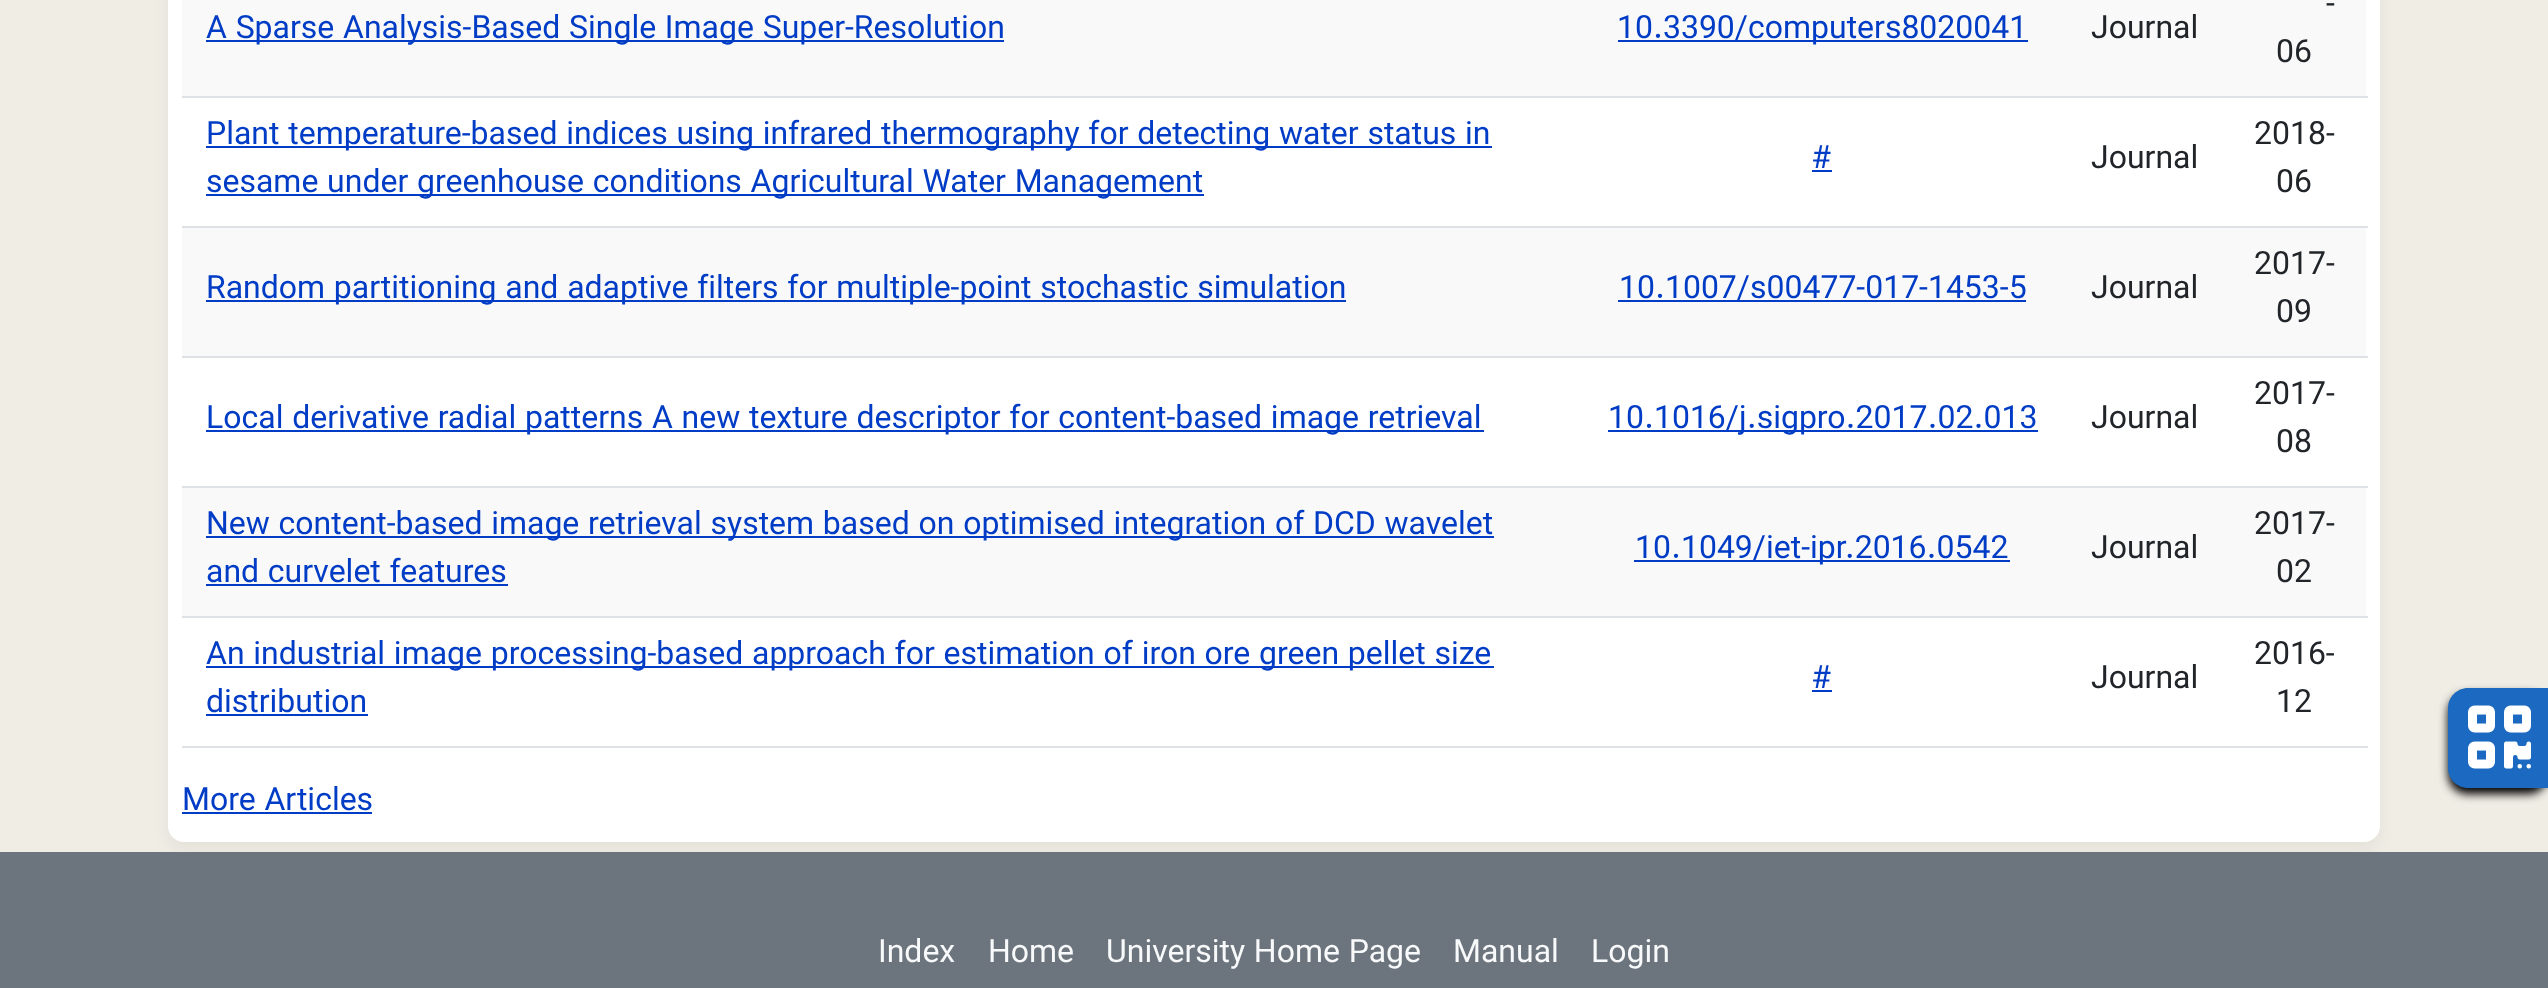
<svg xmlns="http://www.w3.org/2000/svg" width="2548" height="988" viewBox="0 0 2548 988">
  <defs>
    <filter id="blur1" x="-50%" y="-200%" width="200%" height="500%"><feGaussianBlur stdDeviation="8"/></filter>
    <filter id="blur2" x="-50%" y="-200%" width="200%" height="500%"><feGaussianBlur stdDeviation="5"/></filter>
  </defs>
  <rect width="100%" height="100%" fill="#f0ede5"/>
  <rect x="168" y="-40" width="2212" height="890" rx="16" fill="#000000" fill-opacity="0.05" filter="url(#blur1)"/>
  <rect x="168" y="-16" width="2212" height="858" rx="16" fill="#ffffff"/>
  <rect x="182" y="0" width="2184" height="96" fill="#f9f9f9"/>
  <rect x="206" y="40" width="798" height="2" fill="#003cc5"/>
  <text x="206" y="38" font-family="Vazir" font-size="32" fill="#003cc5">A Sparse Analysis-Based Single Image Super-Resolution</text>
  <rect x="1618" y="40" width="410" height="2" fill="#003cc5"/>
  <text x="1617" y="38" font-family="Vazir" font-size="32" fill="#003cc5">10.3390/computers8020041</text>
  <text x="2091" y="38" font-family="Vazir" font-size="32" fill="#212529">Journal</text>
  <rect x="182" y="96" width="2186" height="2" fill="#dee2e6"/>
  <text x="2326" y="14" font-family="Vazir" font-size="32" fill="#212529">-</text>
  <text x="2276" y="62" font-family="Vazir" font-size="32" fill="#212529">06</text>
  <rect x="206" y="146" width="1286" height="2" fill="#003cc5"/>
  <text x="206" y="144" font-family="Vazir" font-size="32" fill="#003cc5">Plant temperature-based indices using infrared thermography for detecting water status in</text>
  <rect x="206" y="194" width="998" height="2" fill="#003cc5"/>
  <text x="206" y="192" font-family="Vazir" font-size="32" fill="#003cc5">sesame under greenhouse conditions Agricultural Water Management</text>
  <text x="1812" y="168" font-family="Vazir" font-size="32" fill="#003cc5">#</text>
  <rect x="1812" y="170" width="20" height="2" fill="#003cc5"/>
  <text x="2091" y="168" font-family="Vazir" font-size="32" fill="#212529">Journal</text>
  <rect x="182" y="226" width="2186" height="2" fill="#dee2e6"/>
  <text x="2254" y="144" font-family="Vazir" font-size="32" fill="#212529">2018-</text>
  <text x="2276" y="192" font-family="Vazir" font-size="32" fill="#212529">06</text>
  <rect x="182" y="228" width="2184" height="128" fill="#f9f9f9"/>
  <rect x="206" y="300" width="1140" height="2" fill="#003cc5"/>
  <text x="206" y="298" font-family="Vazir" font-size="32" fill="#003cc5">Random partitioning and adaptive filters for multiple-point stochastic simulation</text>
  <text x="1619" y="298" font-family="Vazir" font-size="32" fill="#003cc5">10.1007/s00477-017-1453-5</text>
  <rect x="1618" y="300" width="408" height="2" fill="#003cc5"/>
  <text x="2091" y="298" font-family="Vazir" font-size="32" fill="#212529">Journal</text>
  <rect x="182" y="356" width="2186" height="2" fill="#dee2e6"/>
  <text x="2254" y="274" font-family="Vazir" font-size="32" fill="#212529">2017-</text>
  <text x="2276" y="322" font-family="Vazir" font-size="32" fill="#212529">09</text>
  <rect x="206" y="430" width="1278" height="2" fill="#003cc5"/>
  <text x="206" y="428" font-family="Vazir" font-size="32" fill="#003cc5">Local derivative radial patterns A new texture descriptor for content-based image retrieval</text>
  <rect x="1608" y="430" width="430" height="2" fill="#003cc5"/>
  <text x="1608" y="428" font-family="Vazir" font-size="32" fill="#003cc5">10.1016/j.sigpro.2017.02.013</text>
  <text x="2091" y="428" font-family="Vazir" font-size="32" fill="#212529">Journal</text>
  <rect x="182" y="486" width="2186" height="2" fill="#dee2e6"/>
  <text x="2254" y="404" font-family="Vazir" font-size="32" fill="#212529">2017-</text>
  <text x="2276" y="452" font-family="Vazir" font-size="32" fill="#212529">08</text>
  <rect x="182" y="488" width="2184" height="128" fill="#f9f9f9"/>
  <rect x="206" y="536" width="1288" height="2" fill="#003cc5"/>
  <text x="206" y="534" font-family="Vazir" font-size="32" fill="#003cc5">New content-based image retrieval system based on optimised integration of DCD wavelet</text>
  <text x="206" y="582" font-family="Vazir" font-size="32" fill="#003cc5">and curvelet features</text>
  <rect x="206" y="584" width="302" height="2" fill="#003cc5"/>
  <rect x="1634" y="560" width="376" height="2" fill="#003cc5"/>
  <text x="1635" y="558" font-family="Vazir" font-size="32" fill="#003cc5">10.1049/iet-ipr.2016.0542</text>
  <text x="2091" y="558" font-family="Vazir" font-size="32" fill="#212529">Journal</text>
  <rect x="182" y="616" width="2186" height="2" fill="#dee2e6"/>
  <text x="2254" y="534" font-family="Vazir" font-size="32" fill="#212529">2017-</text>
  <text x="2276" y="582" font-family="Vazir" font-size="32" fill="#212529">02</text>
  <rect x="206" y="666" width="1288" height="2" fill="#003cc5"/>
  <text x="206" y="664" font-family="Vazir" font-size="32" fill="#003cc5">An industrial image processing-based approach for estimation of iron ore green pellet size</text>
  <text x="206" y="712" font-family="Vazir" font-size="32" fill="#003cc5">distribution</text>
  <rect x="206" y="714" width="162" height="2" fill="#003cc5"/>
  <text x="1812" y="688" font-family="Vazir" font-size="32" fill="#003cc5">#</text>
  <rect x="1812" y="690" width="20" height="2" fill="#003cc5"/>
  <text x="2091" y="688" font-family="Vazir" font-size="32" fill="#212529">Journal</text>
  <rect x="182" y="746" width="2186" height="2" fill="#dee2e6"/>
  <text x="2254" y="664" font-family="Vazir" font-size="32" fill="#212529">2016-</text>
  <text x="2276" y="712" font-family="Vazir" font-size="32" fill="#212529">12</text>
  <text x="182" y="810" font-family="Vazir" font-size="32" fill="#003cc5">More Articles</text>
  <rect x="182" y="812" width="190" height="2" fill="#003cc5"/>
  <rect x="2448" y="694" width="100" height="100" rx="20" fill="#000000" filter="url(#blur2)"/>
  <path d="M2468 688H2548V788H2468C2457 788 2448 779 2448 768V708C2448 697 2457 688 2468 688Z" fill="#1b69c0"/>
  <image x="2468" y="705" width="63" height="64" href="img1.png"/>
  <rect x="0" y="852" width="2548" height="136" fill="#6c757d"/>
  <text x="878" y="962" font-family="Vazir" font-size="32" fill="#f8f9fa">Index</text>
  <text x="988" y="962" font-family="Vazir" font-size="32" fill="#f8f9fa">Home</text>
  <text x="1106" y="962" font-family="Vazir" font-size="32" fill="#f8f9fa">University Home Page</text>
  <text x="1453" y="962" font-family="Vazir" font-size="32" fill="#f8f9fa">Manual</text>
  <text x="1591" y="962" font-family="Vazir" font-size="32" fill="#f8f9fa">Login</text>
</svg>
